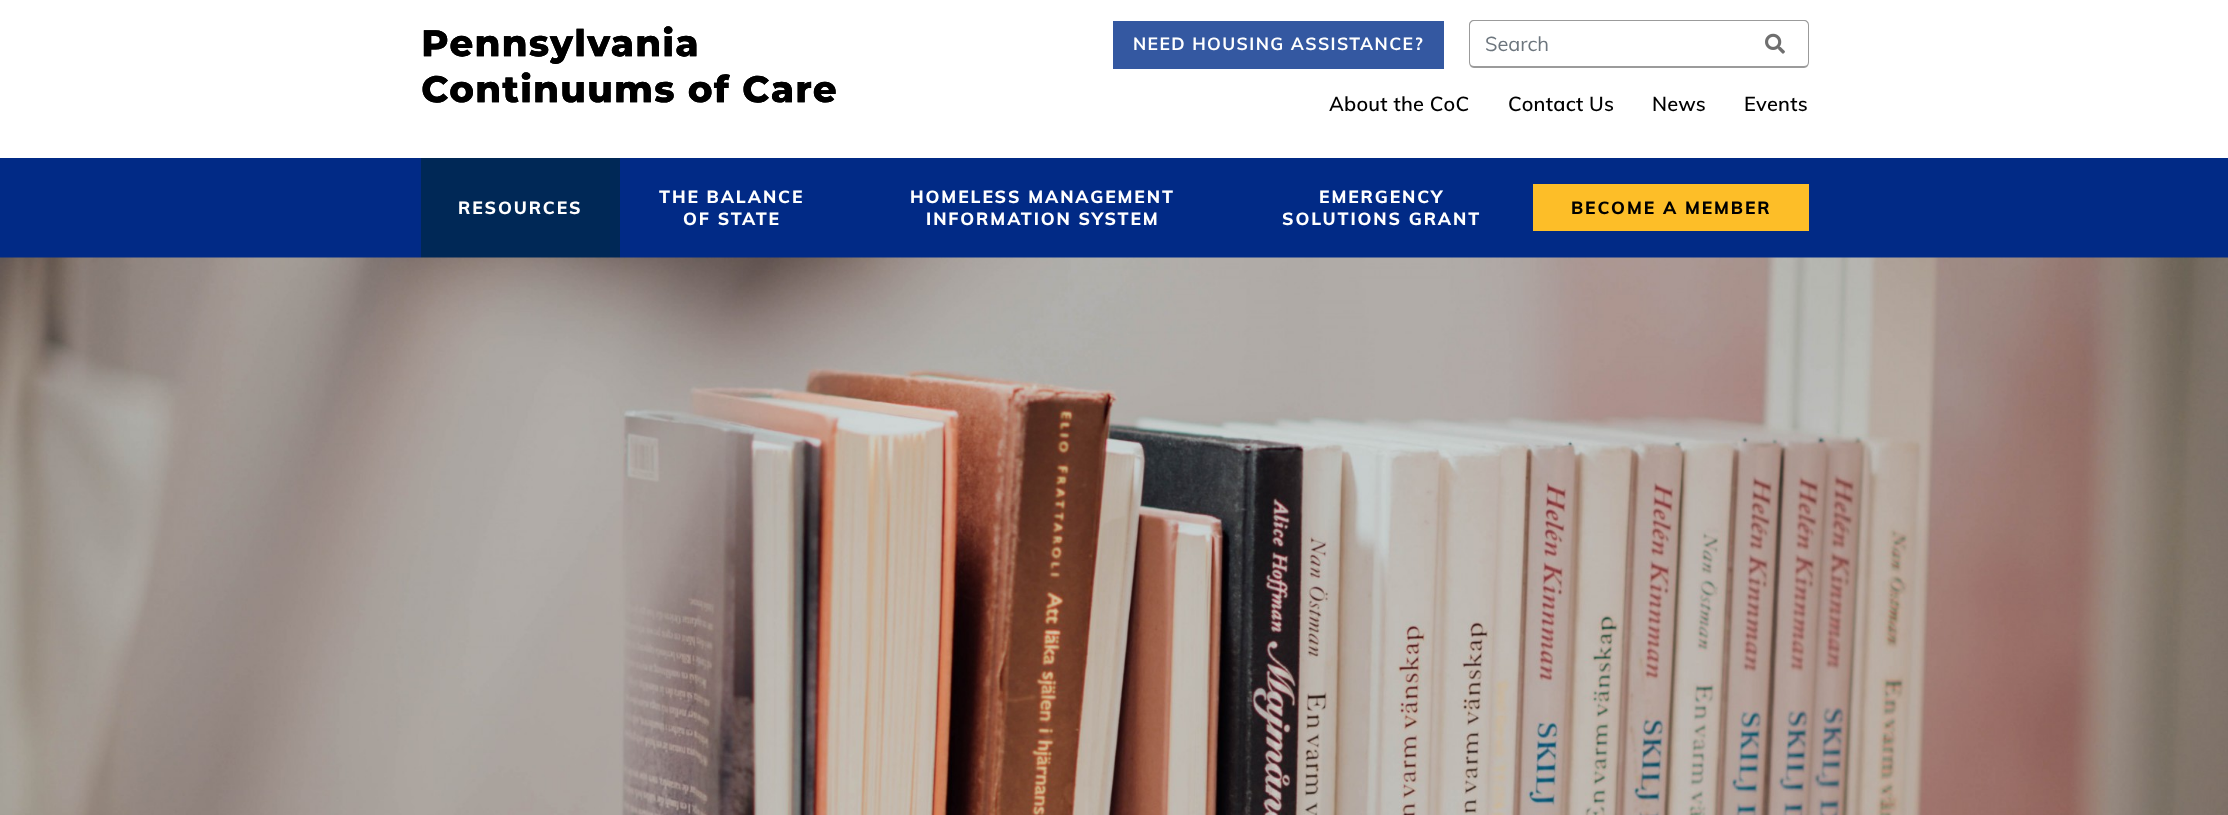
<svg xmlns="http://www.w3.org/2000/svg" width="2228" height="815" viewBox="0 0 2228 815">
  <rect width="100%" height="100%" fill="#ffffff"/>
  <image x="422" y="26" width="414" height="77" href="img1.png"/>
  <rect x="1113" y="21" width="331" height="48" fill="#3458a1"/>
  <text x="1133" y="50" font-family="Muli" font-size="17.5" font-weight="bold" letter-spacing="1.4" fill="#ffffff">NEED HOUSING ASSISTANCE?</text>
  <path d="M1474 20H1745V68H1474C1471 68 1469 65 1469 62V25C1469 22 1471 20 1474 20ZM1474 21H1745V66H1474C1472 66 1470 65 1470 62V25C1470 23 1472 21 1474 21Z" fill="#9b9b9b" fill-rule="evenodd"/>
  <text x="1485" y="51" font-family="Muli" font-size="20" fill="#6c757d">Search</text>
  <path d="M1745 20H1804C1807 20 1809 22 1809 25V62C1809 65 1807 68 1804 68H1745ZM1745 21H1804C1806 21 1808 23 1808 25V62C1808 65 1806 66 1804 66H1745Z" fill="#9b9b9b" fill-rule="evenodd"/>
  <image x="1765" y="33" width="20" height="21" href="img2.png"/>
  <text x="1329" y="111" font-family="Muli" font-size="20" font-weight="600" letter-spacing="0.25" fill="#000000">About the CoC</text>
  <text x="1508" y="111" font-family="Muli" font-size="20" font-weight="600" letter-spacing="0.25" fill="#000000">Contact Us</text>
  <text x="1652" y="111" font-family="Muli" font-size="20" font-weight="600" letter-spacing="0.25" fill="#000000">News</text>
  <text x="1744" y="111" font-family="Muli" font-size="20" font-weight="600" letter-spacing="0.25" fill="#000000">Events</text>
  <rect x="0" y="158" width="2228" height="100" fill="#012a86"/>
  <rect x="421" y="158" width="199" height="100" fill="#002856"/>
  <text x="458" y="214" font-family="Muli" font-size="17.5" font-weight="800" letter-spacing="1.9" fill="#ffffff">RESOURCES</text>
  <text x="659" y="203" font-family="Muli" font-size="17.5" font-weight="800" letter-spacing="1.9" fill="#ffffff">THE BALANCE</text>
  <text x="683" y="225" font-family="Muli" font-size="17.5" font-weight="800" letter-spacing="1.9" fill="#ffffff">OF STATE</text>
  <text x="910" y="203" font-family="Muli" font-size="17.5" font-weight="800" letter-spacing="1.9" fill="#ffffff">HOMELESS MANAGEMENT</text>
  <text x="926" y="225" font-family="Muli" font-size="17.5" font-weight="800" letter-spacing="1.9" fill="#ffffff">INFORMATION SYSTEM</text>
  <text x="1319" y="203" font-family="Muli" font-size="17.5" font-weight="800" letter-spacing="1.9" fill="#ffffff">EMERGENCY</text>
  <text x="1282" y="225" font-family="Muli" font-size="17.5" font-weight="800" letter-spacing="1.9" fill="#ffffff">SOLUTIONS GRANT</text>
  <rect x="1533" y="184" width="276" height="47" fill="#fdbe28"/>
  <text x="1571" y="214" font-family="Muli" font-size="17.5" font-weight="800" letter-spacing="1.9" fill="#000000">BECOME A MEMBER</text>
  <image x="0" y="257" width="2228" height="558" href="img3.png"/>
</svg>
